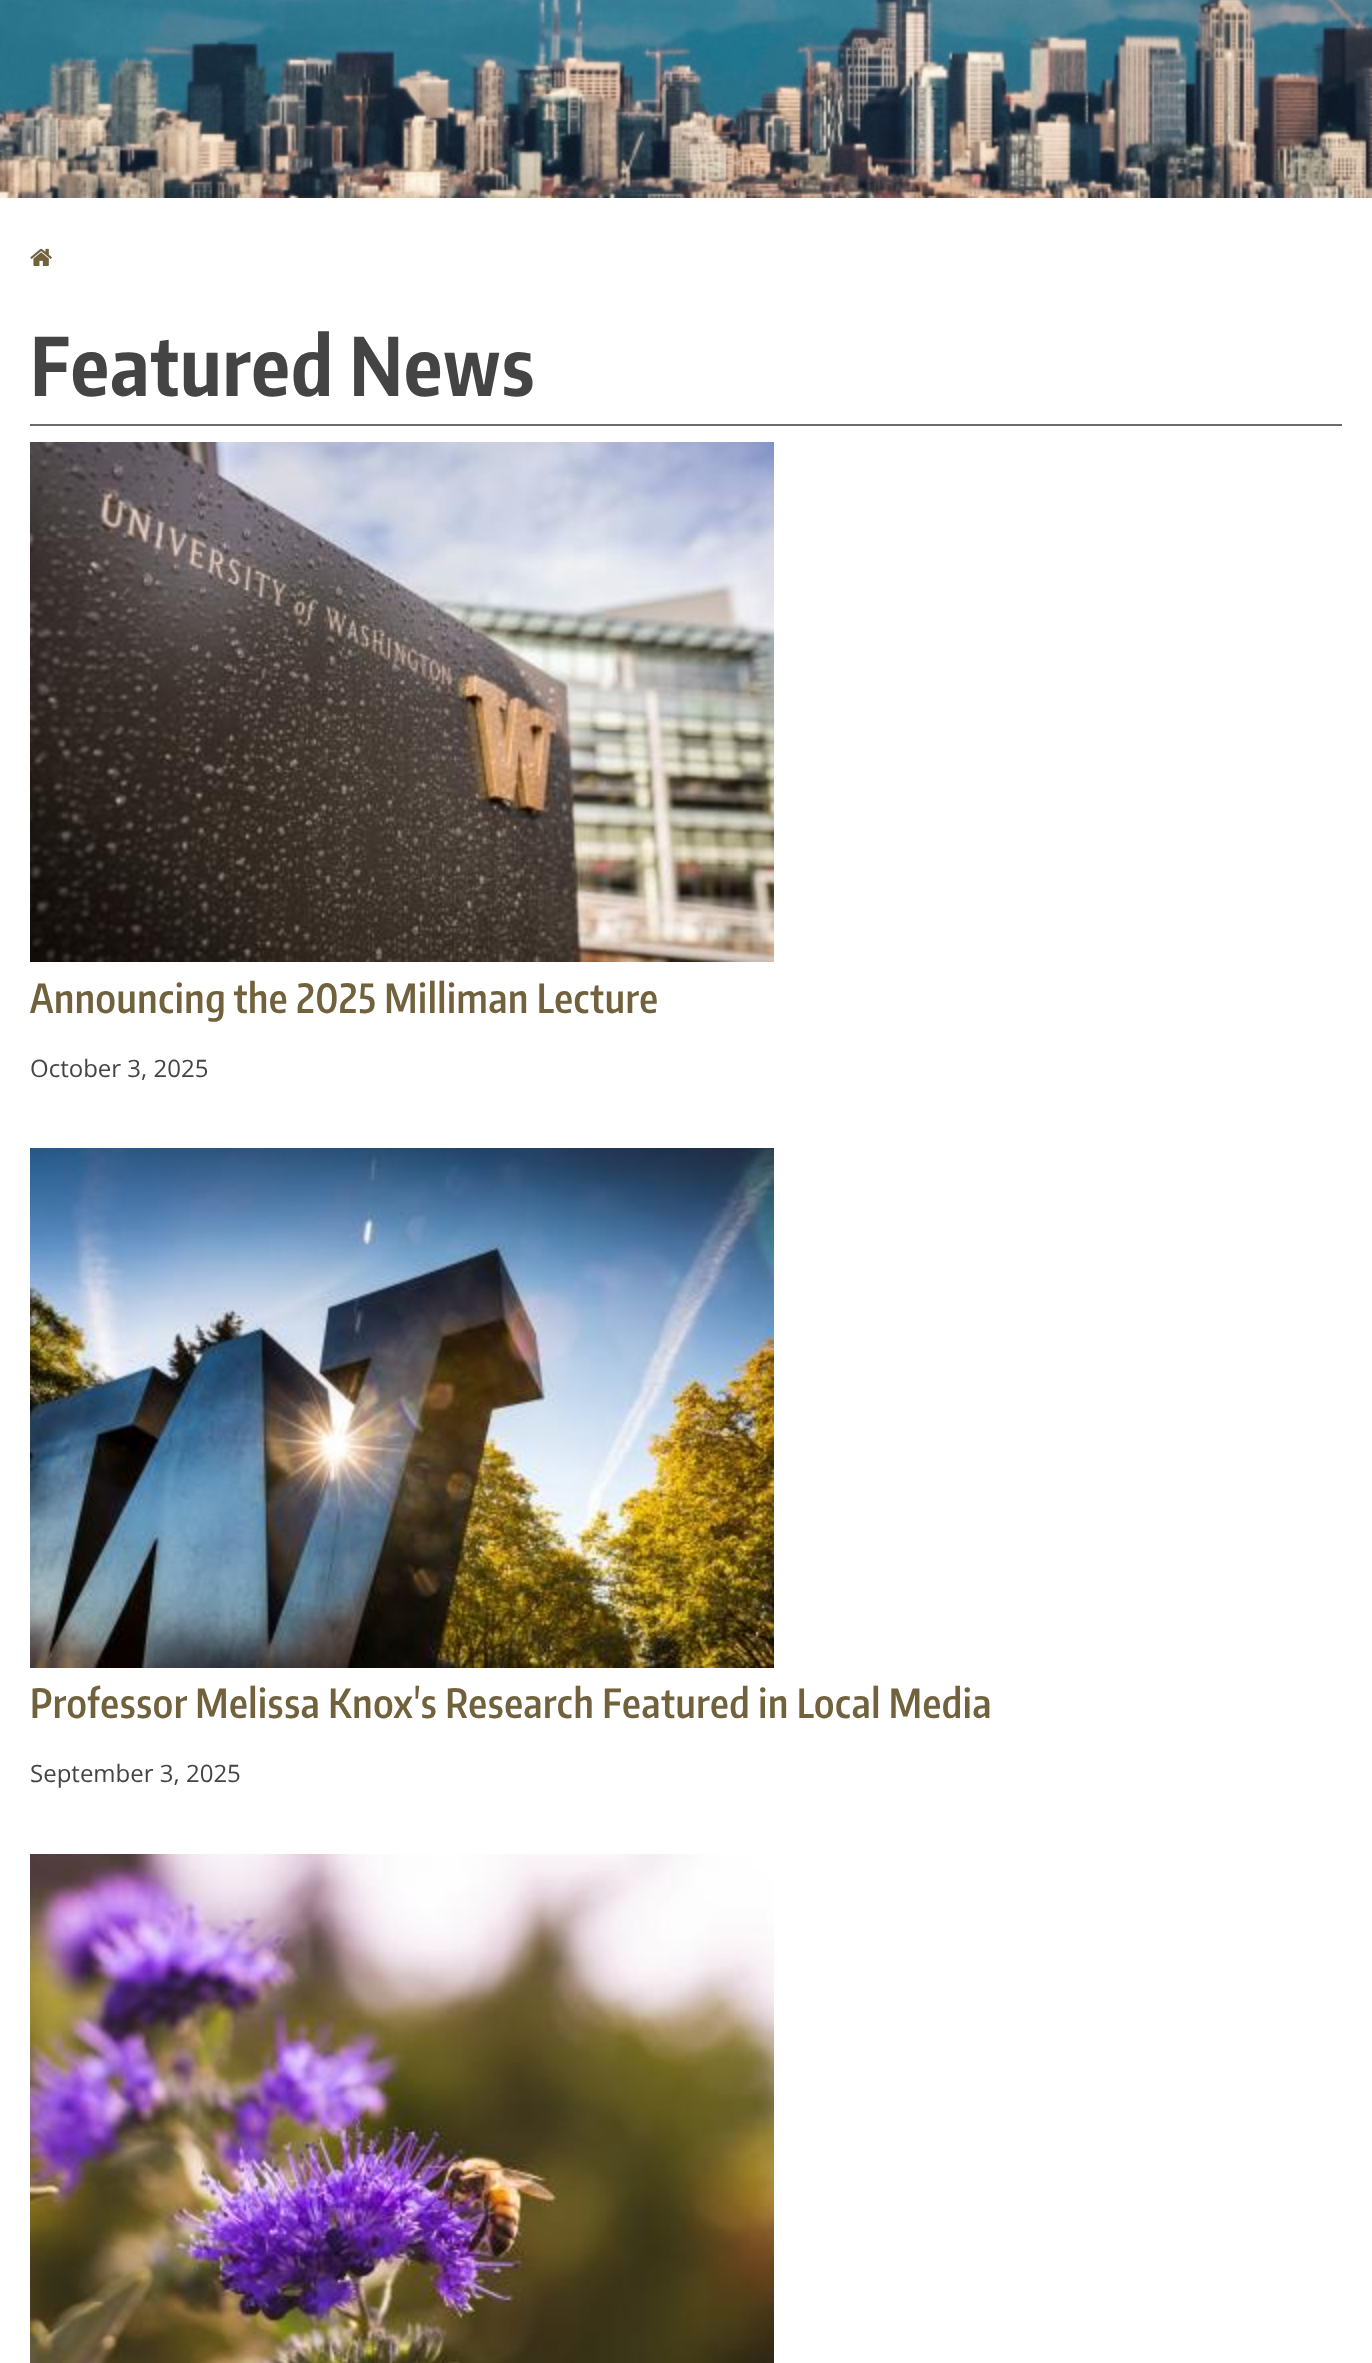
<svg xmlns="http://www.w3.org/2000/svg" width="1372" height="2363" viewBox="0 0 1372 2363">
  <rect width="100%" height="100%" fill="#ffffff"/>
  <image x="0" y="0" width="1372" height="198" href="img1.png"/>
  <image x="30" y="248" width="22" height="18" href="img2.png"/>
  <text x="30" y="396" font-family="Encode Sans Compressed" font-size="80" font-weight="bold" letter-spacing="1" fill="#444444">Featured News</text>
  <rect x="30" y="424" width="1312" height="2" fill="#6b6b6b"/>
  <image x="30" y="442" width="744" height="520" href="img3.png"/>
  <text x="30" y="1013" font-family="Encode Sans Compressed" font-size="40" font-weight="600" letter-spacing="0.6" fill="#71623d">Announcing the 2025 Milliman Lecture</text>
  <text x="30" y="1077" font-family="Open Sans" font-size="24" fill="#444444">October 3, 2025</text>
  <image x="30" y="1148" width="744" height="520" href="img4.png"/>
  <text x="30" y="1718" font-family="Encode Sans Compressed" font-size="40" font-weight="600" letter-spacing="0.6" fill="#71623d">Professor Melissa Knox's Research Featured in Local Media</text>
  <text x="30" y="1782" font-family="Open Sans" font-size="24" fill="#444444">September 3, 2025</text>
  <image x="30" y="1854" width="744" height="509" href="img5.png"/>
</svg>
